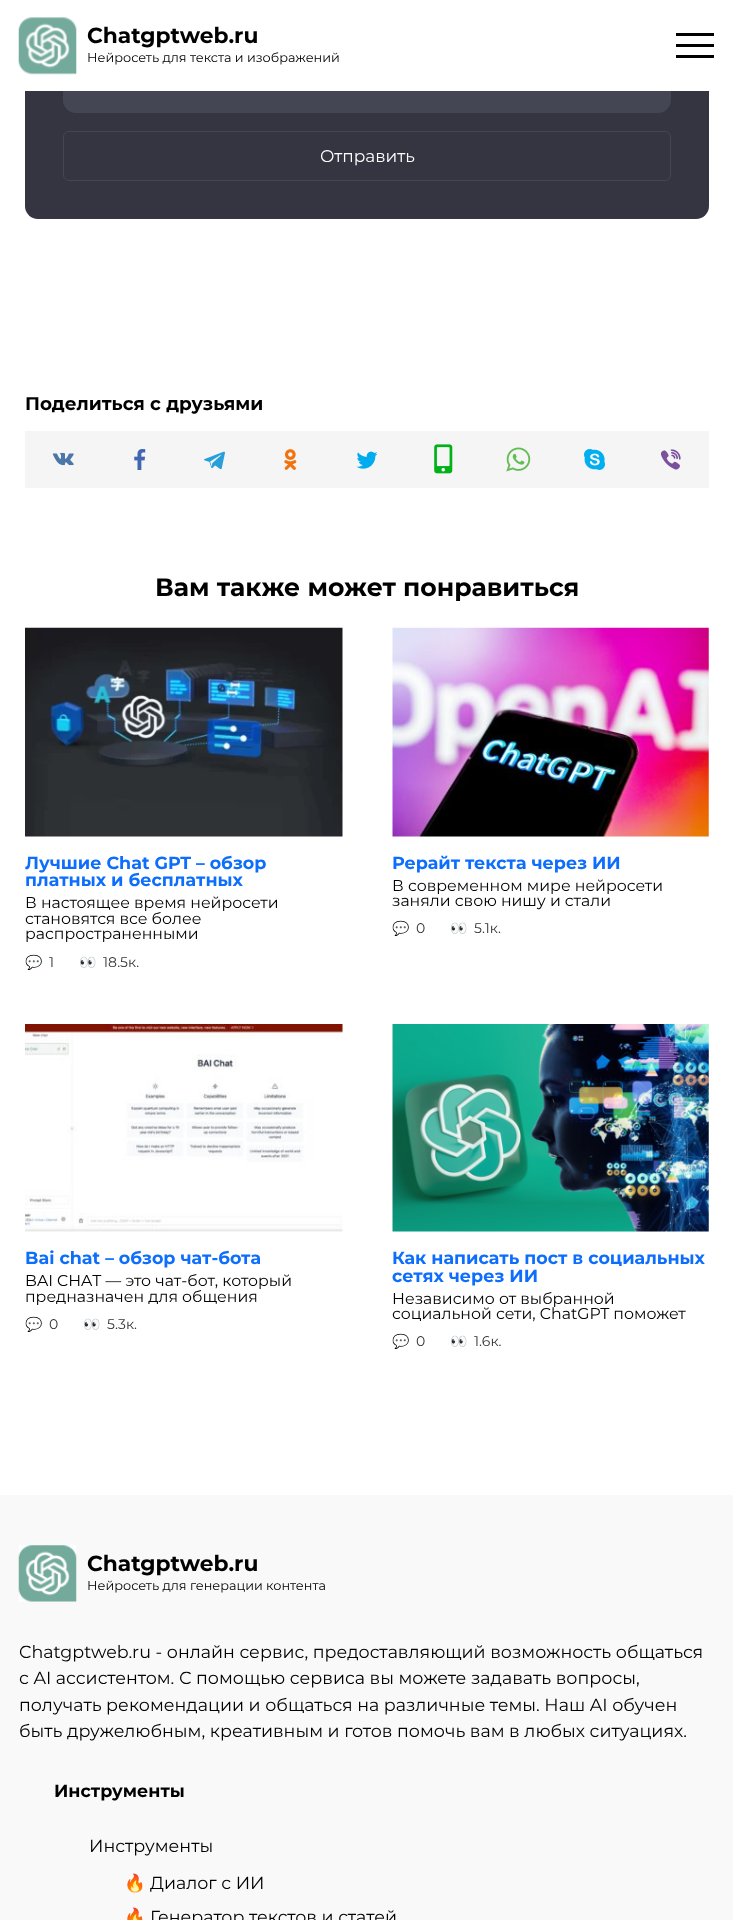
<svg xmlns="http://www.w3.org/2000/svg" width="733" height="1920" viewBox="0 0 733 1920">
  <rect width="100%" height="100%" fill="#ffffff"/>
  <rect x="25" y="-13" width="684" height="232" rx="13" fill="#343541"/>
  <rect x="63" y="43" width="608" height="70" rx="13" fill="#454654"/>
  <rect x="0" y="0" width="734" height="91" rx="13" fill="#ffffff"/>
  <image x="18" y="17" width="59" height="58" href="img1.png"/>
  <text x="87" y="43" font-family="Montserrat" font-size="21.75" font-weight="bold" fill="#000000">Chatgptweb.ru</text>
  <text x="87" y="62" font-family="Montserrat" font-size="12.8" fill="#000000">Нейросеть для текста и изображений</text>
  <rect x="676" y="44" width="38" height="3" fill="#000000"/>
  <rect x="676" y="33" width="38" height="3" fill="#000000"/>
  <rect x="676" y="55" width="38" height="3" fill="#000000"/>
  <rect x="63.5" y="131.5" width="607" height="49" rx="5.5" fill="none" stroke="#454654"/>
  <text x="320" y="162" font-family="Montserrat" font-size="17" fill="#ffffff">Отправить</text>
  <text x="25" y="410" font-family="Montserrat" font-size="18.4" font-weight="bold" fill="#000000">Поделиться с друзьями</text>
  <rect x="25" y="431" width="684" height="57" fill="#f5f5f5"/>
  <image x="52" y="452" width="22" height="14" href="img2.png"/>
  <image x="134" y="449" width="12" height="21" href="img3.png"/>
  <image x="204" y="451" width="21" height="19" href="img4.png"/>
  <image x="284" y="449" width="13" height="21" href="img5.png"/>
  <image x="356" y="451" width="22" height="18" href="img6.png"/>
  <image x="434" y="444" width="19" height="30" href="img7.png"/>
  <image x="506" y="447" width="25" height="25" href="img8.png"/>
  <image x="584" y="449" width="21" height="21" href="img9.png"/>
  <image x="660" y="449" width="21" height="21" href="img10.png"/>
  <text x="155" y="596" font-family="Montserrat" font-size="25.2" font-weight="bold" fill="#000000">Вам также может понравиться</text>
  <image x="25" y="627" width="318" height="210" href="img11.png"/>
  <text x="25" y="869" font-family="Montserrat" font-size="17.5" font-weight="bold" fill="#0d6efd">Лучшие Chat GPT – обзор</text>
  <text x="25" y="886" font-family="Montserrat" font-size="17.5" font-weight="bold" fill="#0d6efd">платных и бесплатных</text>
  <text x="25" y="908" font-family="Montserrat" font-size="15.75" fill="#000000">В настоящее время нейросети</text>
  <text x="25" y="924" font-family="Montserrat" font-size="15.75" fill="#000000">становятся все более</text>
  <text x="25" y="939" font-family="Montserrat" font-size="15.75" fill="#000000">распространенными</text>
  <text x="25" y="967" font-family="Noto Color Emoji" font-size="14" fill="#7162fe">💬</text>
  <text x="49" y="967" font-family="Montserrat" font-size="14" fill="#333333">1</text>
  <text x="79" y="967" font-family="Noto Color Emoji" font-size="14" fill="#7162fe">👀</text>
  <text x="103" y="967" font-family="Montserrat" font-size="14" fill="#333333">18.5к.</text>
  <image x="392" y="627" width="317" height="210" href="img12.png"/>
  <text x="392" y="869" font-family="Montserrat" font-size="17.5" font-weight="bold" fill="#0d6efd">Рерайт текста через ИИ</text>
  <text x="392" y="891" font-family="Montserrat" font-size="15.75" fill="#000000">В современном мире нейросети</text>
  <text x="392" y="906" font-family="Montserrat" font-size="15.75" fill="#000000">заняли свою нишу и стали</text>
  <text x="392" y="933" font-family="Noto Color Emoji" font-size="14" fill="#7162fe">💬</text>
  <text x="416" y="933" font-family="Montserrat" font-size="14" fill="#333333">0</text>
  <text x="450" y="933" font-family="Noto Color Emoji" font-size="14" fill="#7162fe">👀</text>
  <text x="474" y="933" font-family="Montserrat" font-size="14" fill="#333333">5.1к.</text>
  <image x="25" y="1024" width="318" height="208" href="img13.png"/>
  <text x="25" y="1264" font-family="Montserrat" font-size="17.5" font-weight="bold" fill="#0d6efd">Bai chat – обзор чат-бота</text>
  <text x="25" y="1286" font-family="Montserrat" font-size="15.75" fill="#000000">BAI CHAT — это чат-бот, который</text>
  <text x="25" y="1302" font-family="Montserrat" font-size="15.75" fill="#000000">предназначен для общения</text>
  <text x="25" y="1329" font-family="Noto Color Emoji" font-size="14" fill="#7162fe">💬</text>
  <text x="49" y="1329" font-family="Montserrat" font-size="14" fill="#333333">0</text>
  <text x="83" y="1329" font-family="Noto Color Emoji" font-size="14" fill="#7162fe">👀</text>
  <text x="107" y="1329" font-family="Montserrat" font-size="14" fill="#333333">5.3к.</text>
  <image x="392" y="1024" width="317" height="208" href="img14.png"/>
  <text x="392" y="1264" font-family="Montserrat" font-size="17.5" font-weight="bold" fill="#0d6efd">Как написать пост в социальных</text>
  <text x="392" y="1282" font-family="Montserrat" font-size="17.5" font-weight="bold" fill="#0d6efd">сетях через ИИ</text>
  <text x="392" y="1304" font-family="Montserrat" font-size="15.75" fill="#000000">Независимо от выбранной</text>
  <text x="392" y="1319" font-family="Montserrat" font-size="15.75" fill="#000000">социальной сети, ChatGPT поможет</text>
  <text x="392" y="1346" font-family="Noto Color Emoji" font-size="14" fill="#7162fe">💬</text>
  <text x="416" y="1346" font-family="Montserrat" font-size="14" fill="#333333">0</text>
  <text x="450" y="1346" font-family="Noto Color Emoji" font-size="14" fill="#7162fe">👀</text>
  <text x="474" y="1346" font-family="Montserrat" font-size="14" fill="#333333">1.6к.</text>
  <rect x="0" y="1495" width="733" height="425" fill="#f9f9f9"/>
  <image x="18" y="1545" width="59" height="57" href="img15.png"/>
  <text x="87" y="1571" font-family="Montserrat" font-size="21.75" font-weight="bold" fill="#000000">Chatgptweb.ru</text>
  <text x="87" y="1590" font-family="Montserrat" font-size="12.8" fill="#000000">Нейросеть для генерации контента</text>
  <text x="19" y="1658" font-family="Montserrat" font-size="17.5" fill="#000000">Chatgptweb.ru - онлайн сервис, предоставляющий возможность общаться</text>
  <text x="19" y="1684" font-family="Montserrat" font-size="17.5" fill="#000000">с AI ассистентом. С помощью сервиса вы можете задавать вопросы,</text>
  <text x="19" y="1711" font-family="Montserrat" font-size="17.5" fill="#000000">получать рекомендации и общаться на различные темы. Наш AI обучен</text>
  <text x="19" y="1737" font-family="Montserrat" font-size="17.5" fill="#000000">быть дружелюбным, креативным и готов помочь вам в любых ситуациях.</text>
  <text x="54" y="1797" font-family="Montserrat" font-size="17.5" font-weight="bold" fill="#000000">Инструменты</text>
  <text x="89" y="1852" font-family="Montserrat" font-size="17.5" fill="#000000">Инструменты</text>
  <text x="124" y="1889" font-family="Noto Color Emoji" font-size="17.5" fill="#000000">🔥</text>
  <text x="150" y="1889" font-family="Montserrat" font-size="17.5" fill="#000000">Диалог с ИИ</text>
  <text x="124" y="1923" font-family="Noto Color Emoji" font-size="17.5" fill="#000000">🔥</text>
  <text x="150" y="1923" font-family="Montserrat" font-size="17.5" fill="#000000">Генератор текстов и статей</text>
</svg>
